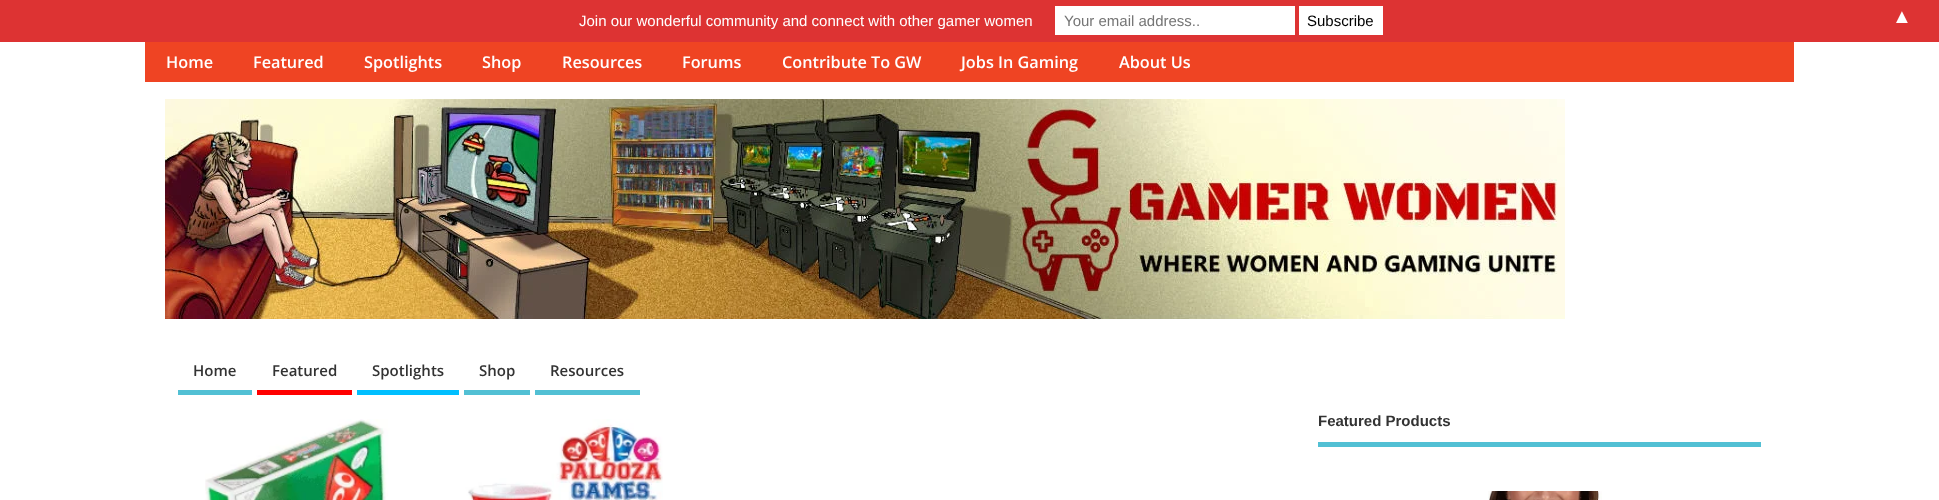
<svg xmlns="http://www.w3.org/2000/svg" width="1939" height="500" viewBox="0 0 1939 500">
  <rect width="100%" height="100%" fill="#ffffff"/>
  <rect x="0" y="0" width="1939" height="42" fill="#dd3333"/>
  <text x="579" y="26" font-family="Liberation Sans" font-size="15" fill="#ffffff">Join our wonderful community and connect with other gamer women</text>
  <rect x="1055" y="6" width="240" height="29" fill="#ffffff"/>
  <text x="1064" y="26" font-family="Liberation Sans" font-size="15" fill="#757575">Your email address..</text>
  <rect x="1299" y="6" width="84" height="29" fill="#ffffff"/>
  <text x="1307" y="26" font-family="Liberation Sans" font-size="15" fill="#000000">Subscribe</text>
  <text x="1892" y="23" font-family="Liberation Sans" font-size="20" fill="#ffffff">▲</text>
  <rect x="145" y="42" width="1649" height="40" fill="#ef4423"/>
  <text x="166" y="68" font-family="Open Sans" font-size="16.25" font-weight="600" fill="#ffffff">Home</text>
  <text x="253" y="68" font-family="Open Sans" font-size="16.25" font-weight="600" fill="#ffffff">Featured</text>
  <text x="364" y="68" font-family="Open Sans" font-size="16.25" font-weight="600" fill="#ffffff">Spotlights</text>
  <text x="482" y="68" font-family="Open Sans" font-size="16.25" font-weight="600" fill="#ffffff">Shop</text>
  <text x="562" y="68" font-family="Open Sans" font-size="16.25" font-weight="600" fill="#ffffff">Resources</text>
  <text x="682" y="68" font-family="Open Sans" font-size="16.25" font-weight="600" fill="#ffffff">Forums</text>
  <text x="782" y="68" font-family="Open Sans" font-size="16.25" font-weight="600" fill="#ffffff">Contribute To GW</text>
  <text x="961" y="68" font-family="Open Sans" font-size="16.25" font-weight="600" fill="#ffffff">Jobs In Gaming</text>
  <text x="1119" y="68" font-family="Open Sans" font-size="16.25" font-weight="600" fill="#ffffff">About Us</text>
  <image x="165" y="99" width="1400" height="220" href="img1.png"/>
  <rect x="178" y="390" width="74" height="5" fill="#52c0d4"/>
  <text x="193" y="376" font-family="Open Sans" font-size="15" font-weight="600" fill="#333333">Home</text>
  <rect x="257" y="390" width="95" height="5" fill="#ff0000"/>
  <text x="272" y="376" font-family="Open Sans" font-size="15" font-weight="600" fill="#333333">Featured</text>
  <rect x="357" y="390" width="102" height="5" fill="#00bfff"/>
  <text x="372" y="376" font-family="Open Sans" font-size="15" font-weight="600" fill="#333333">Spotlights</text>
  <rect x="464" y="390" width="66" height="5" fill="#52c0d4"/>
  <text x="479" y="376" font-family="Open Sans" font-size="15" font-weight="600" fill="#333333">Shop</text>
  <rect x="535" y="390" width="105" height="5" fill="#52c0d4"/>
  <text x="550" y="376" font-family="Open Sans" font-size="15" font-weight="600" fill="#333333">Resources</text>
  <image x="205" y="419" width="458" height="81" href="img2.png"/>
  <rect x="1318" y="442" width="443" height="5" fill="#52c0d4"/>
  <text x="1318" y="426" font-family="Liberation Sans" font-size="15" font-weight="bold" fill="#333333">Featured Products</text>
  <image x="1488" y="491" width="114" height="9" href="img3.png"/>
</svg>
